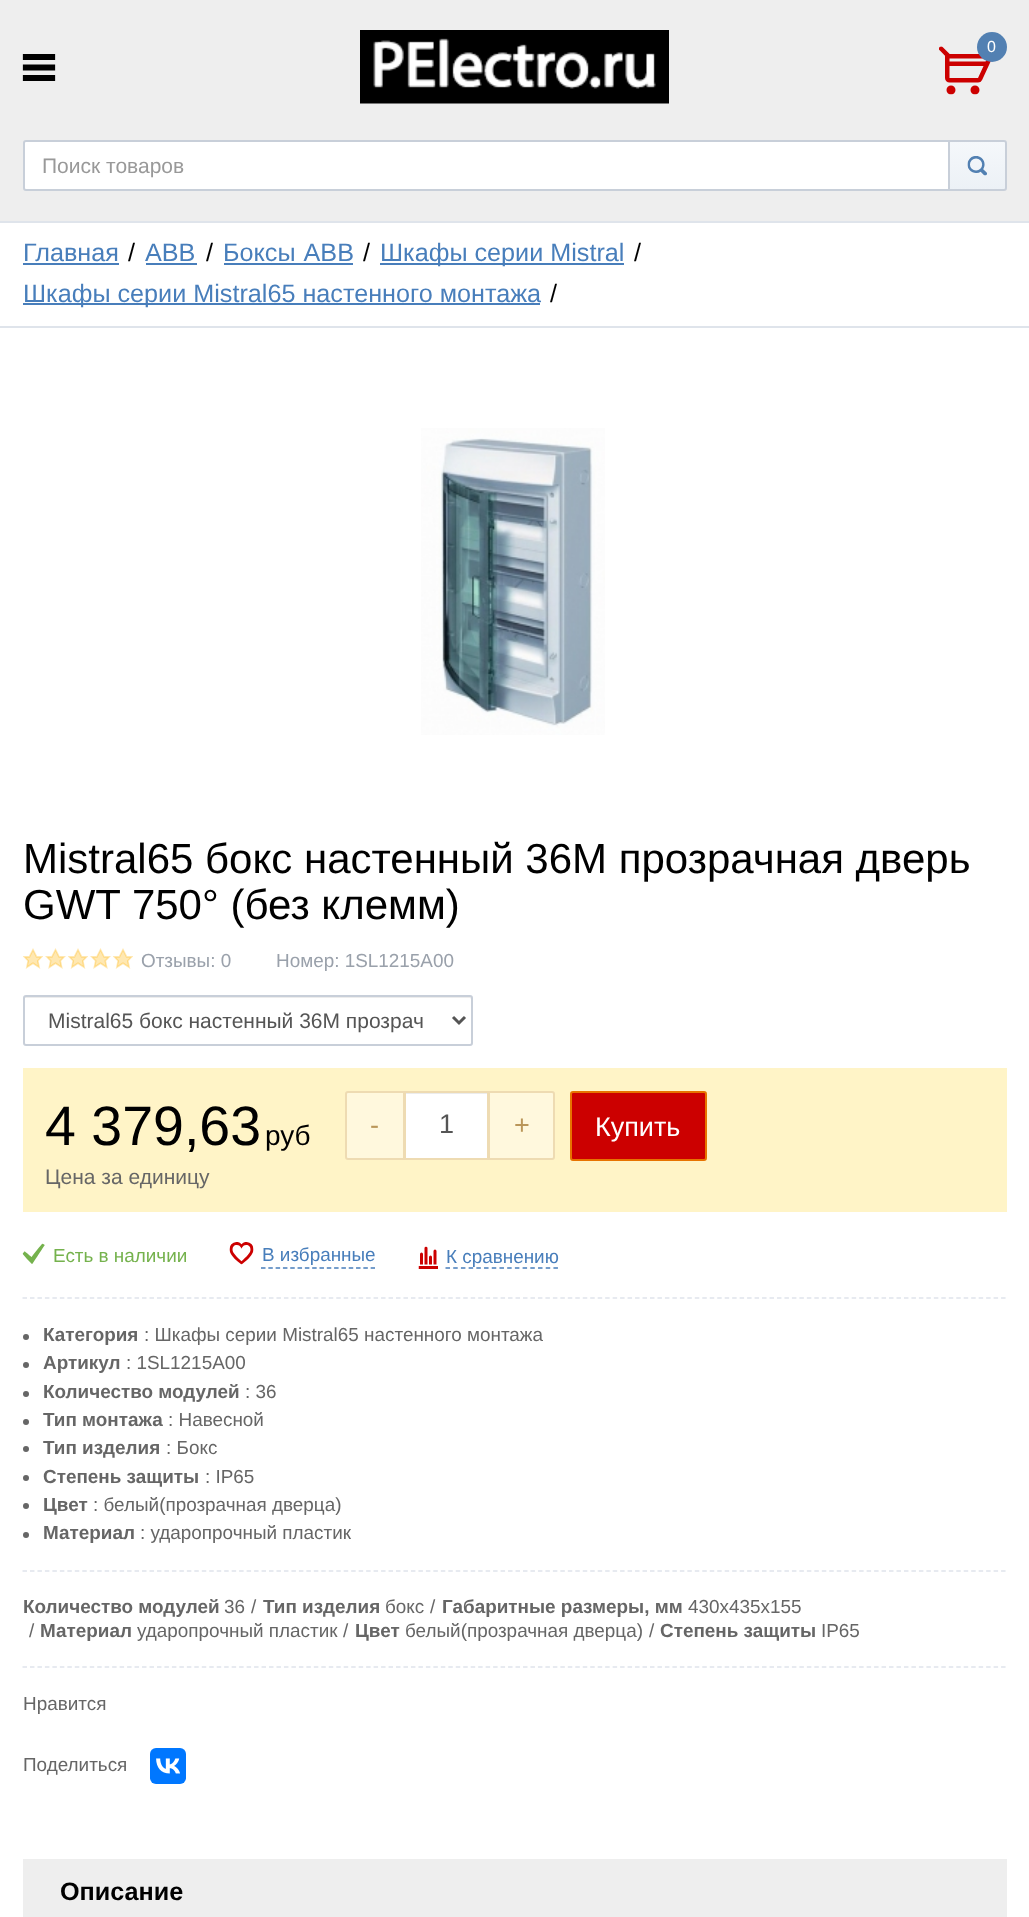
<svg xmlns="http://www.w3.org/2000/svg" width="1029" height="1917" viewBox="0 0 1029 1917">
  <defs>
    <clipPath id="clip1"><path d="M948 140H1004C1005.5 140 1007 141.5 1007 143V188C1007 189.5 1005.5 191 1004 191H948Z"/></clipPath>
    <linearGradient id="g1" gradientUnits="userSpaceOnUse" x1="977" y1="141" x2="977" y2="189"><stop offset="0" stop-color="#f5f8fb"/><stop offset="1" stop-color="#ecf1f6"/></linearGradient>
  </defs>
  <rect width="100%" height="100%" fill="#ffffff"/>
  <rect x="0" y="0" width="1029" height="221" fill="#eeeeee"/>
  <rect x="0" y="221" width="1029" height="2" fill="#dfe4eb"/>
  <image x="360" y="30" width="309" height="74" href="img1.png"/>
  <image x="939" y="46" width="52" height="49" href="img2.png"/>
  <circle cx="992" cy="47" r="15" fill="#5280b2"/>
  <text x="987" y="52" font-family="Liberation Sans" font-size="16" fill="#ffffff">0</text>
  <image x="22" y="54" width="34" height="27" href="img3.png"/>
  <path d="M26 141H949V190H26C25 190 24 189 24 188V143C24 142 25 141 26 141Z" fill="#ffffff" stroke="#c8cfd9" stroke-width="2"/>
  <text x="42" y="173" font-family="Liberation Sans" font-size="21" fill="#999999">Поиск товаров</text>
  <g clip-path="url(#clip1)">
    <rect x="950" y="141" width="57" height="48" fill="url(#g1)"/>
  </g>
  <path d="M949 141H1004C1005 141 1006 142 1006 143V188C1006 189 1005 190 1004 190H949Z" fill="none" stroke="#c8cfd9" stroke-width="2"/>
  <image x="967" y="156" width="20" height="20" href="img4.png"/>
  <rect x="0" y="326" width="1029" height="2" fill="#dfe4eb"/>
  <text x="23" y="261" font-family="Liberation Sans" font-size="25.2" fill="#487ebb">Главная</text>
  <rect x="23" y="263" width="96" height="2" fill="#487ebb"/>
  <text x="128" y="261" font-family="Liberation Sans" font-size="25.2" fill="#000000">/</text>
  <text x="145" y="261" font-family="Liberation Sans" font-size="25.2" fill="#487ebb">ABB</text>
  <rect x="146" y="263" width="51" height="2" fill="#487ebb"/>
  <text x="206" y="261" font-family="Liberation Sans" font-size="25.2" fill="#000000">/</text>
  <text x="223" y="261" word-spacing="1" font-family="Liberation Sans" font-size="25.2" fill="#487ebb">Боксы ABB</text>
  <rect x="224" y="263" width="129" height="2" fill="#487ebb"/>
  <text x="363" y="261" font-family="Liberation Sans" font-size="25.2" fill="#000000">/</text>
  <rect x="380" y="263" width="244" height="2" fill="#487ebb"/>
  <text x="380" y="261" font-family="Liberation Sans" font-size="25.2" fill="#487ebb">Шкафы серии Mistral</text>
  <text x="634" y="261" font-family="Liberation Sans" font-size="25.2" fill="#000000">/</text>
  <rect x="23" y="303" width="517" height="2" fill="#487ebb"/>
  <text x="23" y="302" font-family="Liberation Sans" font-size="25.2" fill="#487ebb">Шкафы серии Mistral65 настенного монтажа</text>
  <text x="550" y="302" font-family="Liberation Sans" font-size="25.2" fill="#000000">/</text>
  <image x="421" y="428" width="184" height="307" href="img5.png"/>
  <text x="23" y="873" font-family="Liberation Sans" font-size="42" fill="#000000">Mistral65 бокс настенный 36М прозрачная дверь</text>
  <text x="23" y="919" font-family="Liberation Sans" font-size="42" fill="#000000">GWT 750° (без клемм)</text>
  <image x="23" y="948" width="20" height="21" href="img6.png"/>
  <image x="45" y="948" width="21" height="21" href="img7.png"/>
  <image x="68" y="948" width="20" height="21" href="img6.png"/>
  <image x="90" y="948" width="21" height="21" href="img7.png"/>
  <image x="113" y="948" width="20" height="21" href="img6.png"/>
  <text x="141" y="967" font-family="Liberation Sans" font-size="18.9" fill="#9aa1ab">Отзывы: 0</text>
  <text x="276" y="967" font-family="Liberation Sans" font-size="18.9" fill="#9aa1ab">Номер: 1SL1215A00</text>
  <path d="M26 998H470L471 999C471 998 471 996 470 996H26L24 997V999C24 998 25 998 26 998Z" fill="#ececec"/>
  <rect x="24" y="996" width="448" height="49" rx="2" fill="none" stroke="#c8cfd9" stroke-width="2"/>
  <path d="M453 1017L459 1023L465 1017" fill="none" stroke="#555555" stroke-width="3"/>
  <text x="48" y="1028" font-family="Liberation Sans" font-size="21" fill="#555555">Mistral65 бокс настенный 36М прозрач</text>
  <rect x="23" y="1068" width="984" height="144" fill="#fff4c7"/>
  <text x="45" y="1145" font-family="Liberation Sans" font-size="55.5" fill="#000000">4 379,63</text>
  <text x="265" y="1145" font-family="Liberation Sans" font-size="28" fill="#000000">руб</text>
  <text x="45" y="1184" font-family="Liberation Sans" font-size="21" fill="#666666">Цена за единицу</text>
  <path d="M348 1092H404V1159H348C347 1159 346 1158 346 1157V1094C346 1093 347 1092 348 1092Z" fill="#fff8dd" stroke="#eedbb2" stroke-width="2"/>
  <text x="370" y="1134" font-family="Liberation Sans" font-size="27" fill="#ba9659">-</text>
  <rect x="406" y="1094" width="81" height="64" fill="#ffffff"/>
  <rect x="405" y="1093" width="83" height="1" fill="#ececec"/>
  <rect x="405" y="1092" width="83" height="67" fill="none" stroke="#eedbb2" stroke-width="2"/>
  <text x="439" y="1133" font-family="Liberation Sans" font-size="27" fill="#555555">1</text>
  <path d="M489 1092H552C553 1092 554 1093 554 1094V1157C554 1158 553 1159 552 1159H489Z" fill="#fff8dd" stroke="#eedbb2" stroke-width="2"/>
  <text x="514" y="1134" font-family="Liberation Sans" font-size="27" fill="#ba9659">+</text>
  <rect x="571" y="1092" width="135" height="68" rx="2" fill="#cc0000" stroke="#e77300" stroke-width="2"/>
  <text x="595" y="1136" font-family="Liberation Sans" font-size="27" fill="#ffffff">Купить</text>
  <image x="22" y="1243" width="23" height="21" href="img8.png"/>
  <text x="53" y="1262" font-family="Liberation Sans" font-size="18.9" fill="#75b24d">Есть в наличии</text>
  <image x="229" y="1242" width="25" height="23" href="img9.png"/>
  <path d="M261 1268H375" fill="none" stroke="#487ebb" stroke-width="1.5" stroke-dasharray="4.5 2.81"/>
  <text x="262" y="1261" font-family="Liberation Sans" font-size="18.9" fill="#487ebb">В избранные</text>
  <image x="418" y="1246" width="20" height="23" href="img10.png"/>
  <path d="M445.5 1268H558" fill="none" stroke="#487ebb" stroke-width="1.5" stroke-dasharray="4.5 3.21"/>
  <text x="446" y="1263" font-family="Liberation Sans" font-size="18.9" fill="#487ebb">К сравнению</text>
  <path d="M22.5 1298H1006.5" fill="none" stroke="#dfe4eb" stroke-width="1.5" stroke-dasharray="4.5 2.97"/>
  <circle cx="26" cy="1337" r="3" fill="#666666"/>
  <text x="43" y="1341" font-family="Liberation Sans" font-size="18.9" font-weight="bold" fill="#666666">Категория</text>
  <text x="144" y="1341" font-family="Liberation Sans" font-size="18.9" fill="#666666">: Шкафы серии Mistral65 настенного монтажа</text>
  <circle cx="26" cy="1365" r="3" fill="#666666"/>
  <text x="43" y="1369" font-family="Liberation Sans" font-size="18.9" font-weight="bold" fill="#666666">Артикул</text>
  <text x="126" y="1369" font-family="Liberation Sans" font-size="18.9" fill="#666666">: 1SL1215A00</text>
  <circle cx="26" cy="1394" r="3" fill="#666666"/>
  <text x="43" y="1398" font-family="Liberation Sans" font-size="18.9" font-weight="bold" fill="#666666">Количество модулей</text>
  <text x="245" y="1398" font-family="Liberation Sans" font-size="18.9" fill="#666666">: 36</text>
  <circle cx="26" cy="1422" r="3" fill="#666666"/>
  <text x="43" y="1426" font-family="Liberation Sans" font-size="18.9" font-weight="bold" fill="#666666">Тип монтажа</text>
  <text x="168" y="1426" font-family="Liberation Sans" font-size="18.9" fill="#666666">: Навесной</text>
  <circle cx="26" cy="1449" r="3" fill="#666666"/>
  <text x="43" y="1454" font-family="Liberation Sans" font-size="18.9" font-weight="bold" fill="#666666">Тип изделия</text>
  <text x="166" y="1454" font-family="Liberation Sans" font-size="18.9" fill="#666666">: Бокс</text>
  <circle cx="26" cy="1478" r="3" fill="#666666"/>
  <text x="43" y="1483" font-family="Liberation Sans" font-size="18.9" font-weight="bold" fill="#666666">Степень защиты</text>
  <text x="205" y="1483" font-family="Liberation Sans" font-size="18.9" fill="#666666">: IP65</text>
  <circle cx="26" cy="1506" r="3" fill="#666666"/>
  <text x="43" y="1511" font-family="Liberation Sans" font-size="18.9" font-weight="bold" fill="#666666">Цвет</text>
  <text x="93" y="1511" font-family="Liberation Sans" font-size="18.9" fill="#666666">: белый(прозрачная дверца)</text>
  <circle cx="26" cy="1535" r="3" fill="#666666"/>
  <text x="43" y="1539" font-family="Liberation Sans" font-size="18.9" font-weight="bold" fill="#666666">Материал</text>
  <text x="140" y="1539" font-family="Liberation Sans" font-size="18.9" fill="#666666">: ударопрочный пластик</text>
  <path d="M22.5 1571H1006.5" fill="none" stroke="#dfe4eb" stroke-width="1.5" stroke-dasharray="4.5 2.97"/>
  <text x="23" y="1613" font-family="Liberation Sans" font-size="18.9" font-weight="bold" fill="#666666">Количество модулей</text>
  <text x="224" y="1613" font-family="Liberation Sans" font-size="18.9" fill="#666666">36</text>
  <text x="251" y="1613" font-family="Liberation Sans" font-size="18.9" fill="#666666">/</text>
  <text x="263" y="1613" font-family="Liberation Sans" font-size="18.9" font-weight="bold" fill="#666666">Тип изделия</text>
  <text x="385" y="1613" font-family="Liberation Sans" font-size="18.9" fill="#666666">бокс</text>
  <text x="430" y="1613" font-family="Liberation Sans" font-size="18.9" fill="#666666">/</text>
  <text x="442" y="1613" font-family="Liberation Sans" font-size="18.9" font-weight="bold" fill="#666666">Габаритные размеры, мм</text>
  <text x="688" y="1613" font-family="Liberation Sans" font-size="18.9" fill="#666666">430х435х155</text>
  <text x="29" y="1637" font-family="Liberation Sans" font-size="18.9" fill="#666666">/</text>
  <text x="40" y="1637" font-family="Liberation Sans" font-size="18.9" font-weight="bold" fill="#666666">Материал</text>
  <text x="137" y="1637" font-family="Liberation Sans" font-size="18.9" fill="#666666">ударопрочный пластик</text>
  <text x="343" y="1637" font-family="Liberation Sans" font-size="18.9" fill="#666666">/</text>
  <text x="355" y="1637" font-family="Liberation Sans" font-size="18.9" font-weight="bold" fill="#666666">Цвет</text>
  <text x="405" y="1637" font-family="Liberation Sans" font-size="18.9" fill="#666666">белый(прозрачная дверца)</text>
  <text x="649" y="1637" font-family="Liberation Sans" font-size="18.9" fill="#666666">/</text>
  <text x="660" y="1637" font-family="Liberation Sans" font-size="18.9" font-weight="bold" fill="#666666">Степень защиты</text>
  <text x="821" y="1637" font-family="Liberation Sans" font-size="18.9" fill="#666666">IP65</text>
  <path d="M22.5 1667H1006.5" fill="none" stroke="#dfe4eb" stroke-width="1.5" stroke-dasharray="4.5 2.97"/>
  <text x="23" y="1710" font-family="Liberation Sans" font-size="18.9" fill="#666666">Нравится</text>
  <text x="23" y="1771" font-family="Liberation Sans" font-size="18.9" fill="#666666">Поделиться</text>
  <rect x="150" y="1748" width="36" height="36" rx="6" fill="#0077ff"/>
  <image x="156" y="1758" width="24" height="16" href="img11.png"/>
  <rect x="23" y="1859" width="984" height="58" fill="#eeeeee"/>
  <text x="60" y="1900" font-family="Liberation Sans" font-size="25.2" font-weight="bold" fill="#000000">Описание</text>
</svg>
